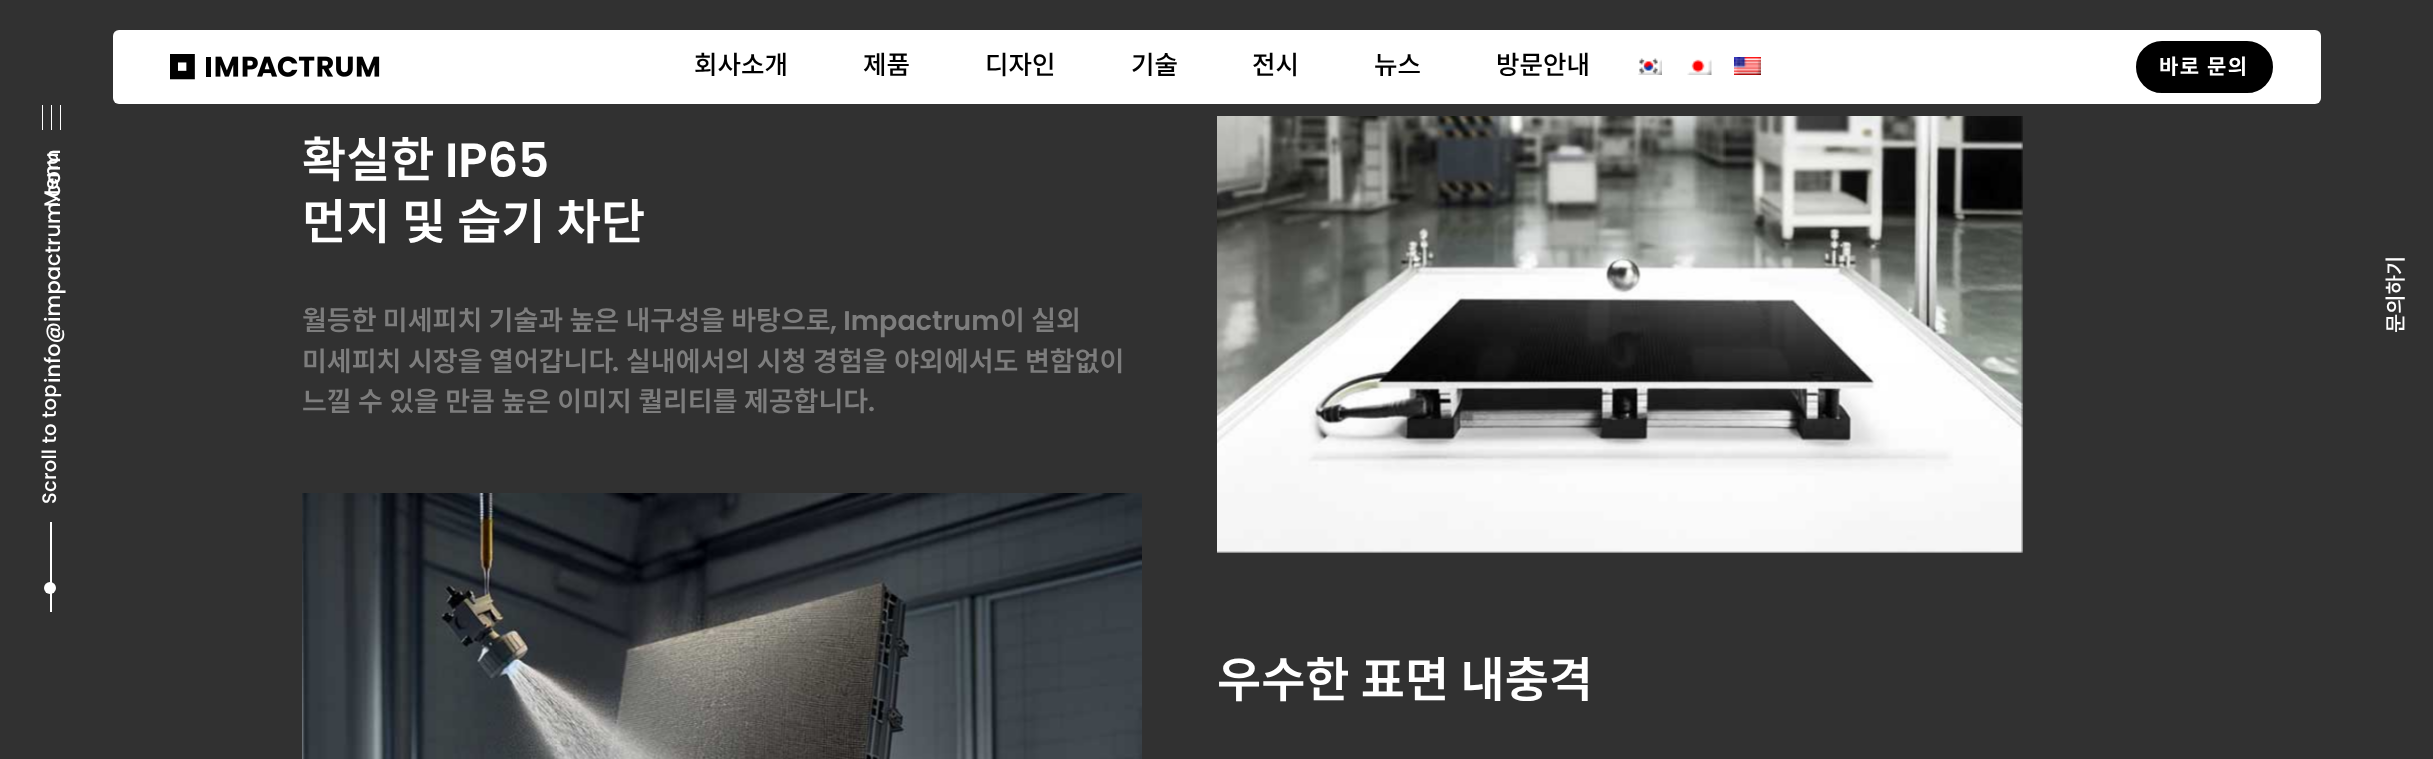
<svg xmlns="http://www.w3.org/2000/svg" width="2433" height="759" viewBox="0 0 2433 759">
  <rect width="100%" height="100%" fill="#313131"/>
  <rect x="113" y="30" width="2208" height="74" rx="6" fill="#ffffff"/>
  <image x="170" y="54" width="210" height="26" href="img1.png"/>
  <text x="694" y="74" font-family="Noto Sans KR" font-size="25.5" font-weight="500" fill="#000000">회사소개</text>
  <text x="863" y="74" font-family="Noto Sans KR" font-size="25.5" font-weight="500" fill="#000000">제품</text>
  <text x="985" y="74" font-family="Noto Sans KR" font-size="25.5" font-weight="500" fill="#000000">디자인</text>
  <text x="1131" y="74" font-family="Noto Sans KR" font-size="25.5" font-weight="500" fill="#000000">기술</text>
  <text x="1252" y="74" font-family="Noto Sans KR" font-size="25.5" font-weight="500" fill="#000000">전시</text>
  <text x="1374" y="74" font-family="Noto Sans KR" font-size="25.5" font-weight="500" fill="#000000">뉴스</text>
  <text x="1496" y="74" font-family="Noto Sans KR" font-size="25.5" font-weight="500" fill="#000000">방문안내</text>
  <image x="1638" y="58" width="24" height="17" href="img2.png"/>
  <image x="1687" y="59" width="25" height="16" href="img3.png"/>
  <image x="1734" y="57" width="27" height="18" href="img4.png"/>
  <rect x="2137.5" y="42.5" width="134" height="49" rx="24.5" fill="#000000" stroke="#000000" stroke-width="3"/>
  <text x="2159" y="74" font-family="Noto Sans KR" font-size="21" font-weight="bold" letter-spacing="1.5" fill="#ffffff">바로 문의</text>
  <text x="58" y="207" transform="rotate(-90 58 207)" font-family="Poppins" font-size="19.5" font-weight="500" fill="#ffffff">Menu</text>
  <text x="60" y="383" transform="rotate(-90 60 383)" font-family="Poppins" font-size="21" font-weight="500" fill="#ffffff">info@impactrum.com</text>
  <rect x="42" y="105" width="1" height="25" fill="#ffffff"/>
  <rect x="51" y="105" width="1" height="25" fill="#ffffff"/>
  <rect x="60" y="105" width="1" height="25" fill="#ffffff"/>
  <text x="56" y="504" transform="rotate(-90 56 504)" font-family="Poppins" font-size="19.5" font-weight="500" letter-spacing="0.25" fill="#ffffff">Scroll to top</text>
  <rect x="50" y="522" width="2" height="90" fill="#ffffff"/>
  <circle cx="50" cy="588" r="6" fill="#ffffff"/>
  <text x="2403" y="333" transform="rotate(-90 2403 333)" font-family="Noto Sans KR" font-size="21" font-weight="500" fill="#ffffff">문의하기</text>
  <text x="302" y="177" font-family="Noto Sans KR" font-size="48" font-weight="600" fill="#ffffff">확실한</text>
  <text x="445" y="177" font-family="Poppins" font-size="48" font-weight="600" fill="#ffffff">IP65</text>
  <text x="302" y="239" word-spacing="0.5" font-family="Noto Sans KR" font-size="48" font-weight="600" fill="#ffffff">먼지 및 습기 차단</text>
  <text x="302" y="330" word-spacing="0.25" font-family="Noto Sans KR" font-size="27" font-weight="600" fill="#7d7d7d">월등한 미세피치 기술과 높은 내구성을 바탕으로</text>
  <text x="830" y="330" font-family="Poppins" font-size="27" font-weight="600" fill="#7d7d7d">, Impactrum</text>
  <text x="1000" y="330" word-spacing="0.25" font-family="Noto Sans KR" font-size="27" font-weight="600" fill="#7d7d7d">이 실외</text>
  <text x="302" y="371" word-spacing="0.5" font-family="Noto Sans KR" font-size="27" font-weight="600" fill="#7d7d7d">미세피치 시장을 열어갑니다</text>
  <text x="612" y="371" font-family="Poppins" font-size="27" font-weight="600" fill="#7d7d7d">.</text>
  <text x="626" y="371" word-spacing="0.5" font-family="Noto Sans KR" font-size="27" font-weight="600" fill="#7d7d7d">실내에서의 시청 경험을 야외에서도 변함없이</text>
  <text x="302" y="411" word-spacing="0.25" font-family="Noto Sans KR" font-size="27" font-weight="600" fill="#7d7d7d">느낄 수 있을 만큼 높은 이미지 퀄리티를 제공합니다</text>
  <text x="868" y="411" font-family="Poppins" font-size="27" font-weight="600" fill="#7d7d7d">.</text>
  <image x="302" y="493" width="840" height="266" href="img5.png"/>
  <image x="1217" y="116" width="806" height="437" href="img6.png"/>
  <text x="1217" y="697" word-spacing="0.5" font-family="Noto Sans KR" font-size="48" font-weight="600" fill="#ffffff">우수한 표면 내충격</text>
</svg>
